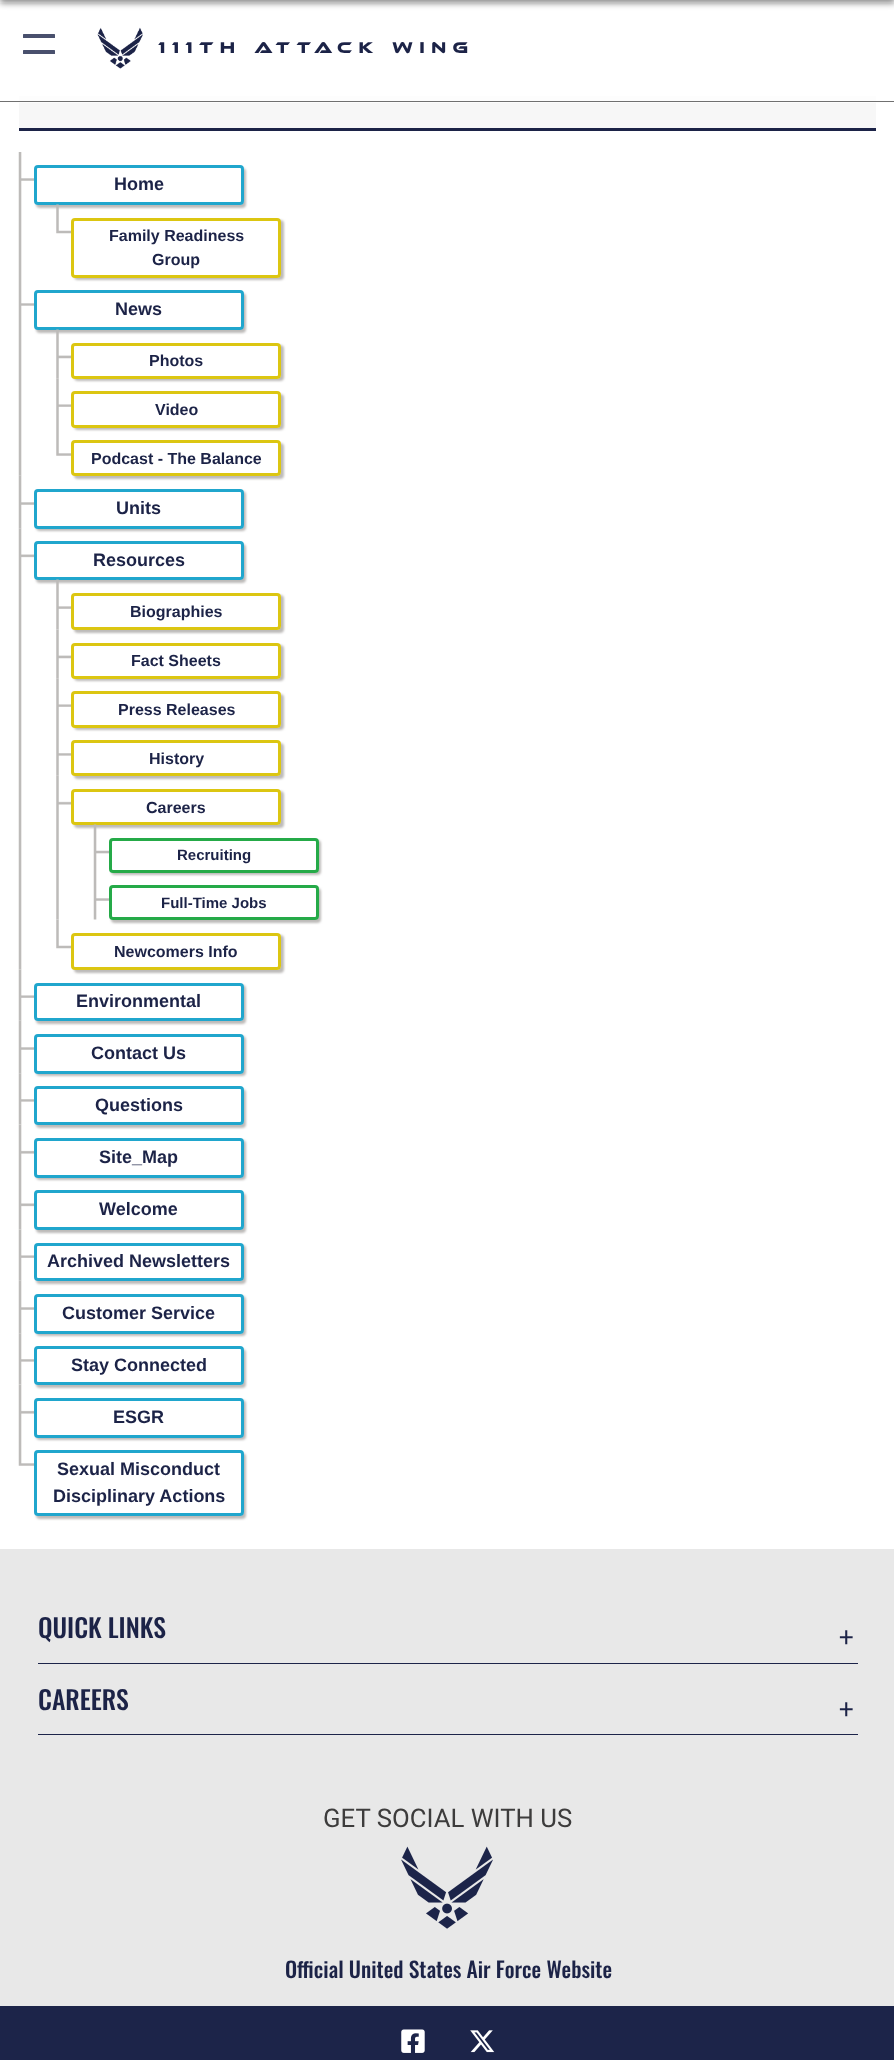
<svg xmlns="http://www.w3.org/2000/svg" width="894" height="2060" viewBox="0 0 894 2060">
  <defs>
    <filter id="blur1" x="-50%" y="-200%" width="200%" height="500%"><feGaussianBlur stdDeviation="3"/></filter>
    <linearGradient id="g1" gradientUnits="userSpaceOnUse" x1="448" y1="77" x2="448" y2="130"><stop offset="0" stop-color="#ffffff"/><stop offset="0.36" stop-color="#ffffff"/><stop offset="0.36" stop-color="#f7f7f7"/><stop offset="1" stop-color="#f7f7f7"/></linearGradient>
    <clipPath id="clip1"><path d="M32 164H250V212H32ZM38 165H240C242 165 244 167 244 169V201C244 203 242 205 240 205H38C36 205 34 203 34 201V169C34 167 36 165 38 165Z" clip-rule="evenodd"/></clipPath>
    <filter id="blur2" x="-50%" y="-200%" width="200%" height="500%"><feGaussianBlur stdDeviation="1"/></filter>
    <clipPath id="clip2"><path d="M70 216H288V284H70ZM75 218H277C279 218 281 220 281 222V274C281 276 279 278 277 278H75C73 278 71 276 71 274V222C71 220 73 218 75 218Z" clip-rule="evenodd"/></clipPath>
    <clipPath id="clip3"><path d="M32 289H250V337H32ZM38 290H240C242 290 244 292 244 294V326C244 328 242 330 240 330H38C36 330 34 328 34 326V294C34 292 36 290 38 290Z" clip-rule="evenodd"/></clipPath>
    <clipPath id="clip4"><path d="M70 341H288V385H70ZM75 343H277C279 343 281 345 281 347V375C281 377 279 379 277 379H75C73 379 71 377 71 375V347C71 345 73 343 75 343Z" clip-rule="evenodd"/></clipPath>
    <clipPath id="clip5"><path d="M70 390H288V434H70ZM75 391H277C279 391 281 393 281 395V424C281 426 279 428 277 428H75C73 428 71 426 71 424V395C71 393 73 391 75 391Z" clip-rule="evenodd"/></clipPath>
    <clipPath id="clip6"><path d="M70 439H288V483H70ZM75 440H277C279 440 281 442 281 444V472C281 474 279 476 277 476H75C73 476 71 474 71 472V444C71 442 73 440 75 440Z" clip-rule="evenodd"/></clipPath>
    <clipPath id="clip7"><path d="M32 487H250V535H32ZM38 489H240C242 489 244 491 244 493V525C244 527 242 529 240 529H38C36 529 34 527 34 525V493C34 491 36 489 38 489Z" clip-rule="evenodd"/></clipPath>
    <clipPath id="clip8"><path d="M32 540H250V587H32ZM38 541H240C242 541 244 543 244 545V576C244 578 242 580 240 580H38C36 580 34 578 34 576V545C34 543 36 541 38 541Z" clip-rule="evenodd"/></clipPath>
    <clipPath id="clip9"><path d="M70 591H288V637H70ZM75 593H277C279 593 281 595 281 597V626C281 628 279 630 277 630H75C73 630 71 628 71 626V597C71 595 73 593 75 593Z" clip-rule="evenodd"/></clipPath>
    <clipPath id="clip10"><path d="M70 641H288V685H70ZM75 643H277C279 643 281 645 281 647V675C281 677 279 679 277 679H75C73 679 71 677 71 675V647C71 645 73 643 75 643Z" clip-rule="evenodd"/></clipPath>
    <clipPath id="clip11"><path d="M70 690H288V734H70ZM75 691H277C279 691 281 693 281 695V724C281 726 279 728 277 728H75C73 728 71 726 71 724V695C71 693 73 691 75 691Z" clip-rule="evenodd"/></clipPath>
    <clipPath id="clip12"><path d="M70 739H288V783H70ZM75 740H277C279 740 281 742 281 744V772C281 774 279 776 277 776H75C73 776 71 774 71 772V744C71 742 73 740 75 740Z" clip-rule="evenodd"/></clipPath>
    <clipPath id="clip13"><path d="M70 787H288V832H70ZM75 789H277C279 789 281 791 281 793V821C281 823 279 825 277 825H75C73 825 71 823 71 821V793C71 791 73 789 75 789Z" clip-rule="evenodd"/></clipPath>
    <clipPath id="clip14"><path d="M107 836H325V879H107ZM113 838H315C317 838 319 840 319 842V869C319 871 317 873 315 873H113C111 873 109 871 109 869V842C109 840 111 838 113 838Z" clip-rule="evenodd"/></clipPath>
    <clipPath id="clip15"><path d="M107 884H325V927H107ZM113 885H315C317 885 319 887 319 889V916C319 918 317 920 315 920H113C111 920 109 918 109 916V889C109 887 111 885 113 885Z" clip-rule="evenodd"/></clipPath>
    <clipPath id="clip16"><path d="M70 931H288V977H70ZM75 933H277C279 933 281 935 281 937V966C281 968 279 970 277 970H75C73 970 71 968 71 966V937C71 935 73 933 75 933Z" clip-rule="evenodd"/></clipPath>
    <clipPath id="clip17"><path d="M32 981H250V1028H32ZM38 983H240C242 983 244 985 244 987V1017C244 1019 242 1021 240 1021H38C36 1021 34 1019 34 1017V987C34 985 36 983 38 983Z" clip-rule="evenodd"/></clipPath>
    <clipPath id="clip18"><path d="M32 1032H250V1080H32ZM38 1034H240C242 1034 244 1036 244 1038V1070C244 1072 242 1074 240 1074H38C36 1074 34 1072 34 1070V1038C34 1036 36 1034 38 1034Z" clip-rule="evenodd"/></clipPath>
    <clipPath id="clip19"><path d="M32 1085H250V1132H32ZM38 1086H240C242 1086 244 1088 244 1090V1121C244 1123 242 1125 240 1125H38C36 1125 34 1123 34 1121V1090C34 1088 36 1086 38 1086Z" clip-rule="evenodd"/></clipPath>
    <clipPath id="clip20"><path d="M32 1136H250V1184H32ZM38 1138H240C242 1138 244 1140 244 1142V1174C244 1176 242 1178 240 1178H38C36 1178 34 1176 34 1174V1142C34 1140 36 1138 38 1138Z" clip-rule="evenodd"/></clipPath>
    <clipPath id="clip21"><path d="M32 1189H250V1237H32ZM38 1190H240C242 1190 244 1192 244 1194V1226C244 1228 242 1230 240 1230H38C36 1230 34 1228 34 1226V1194C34 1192 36 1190 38 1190Z" clip-rule="evenodd"/></clipPath>
    <clipPath id="clip22"><path d="M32 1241H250V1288H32ZM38 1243H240C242 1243 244 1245 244 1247V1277C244 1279 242 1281 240 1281H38C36 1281 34 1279 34 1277V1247C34 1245 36 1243 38 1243Z" clip-rule="evenodd"/></clipPath>
    <clipPath id="clip23"><path d="M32 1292H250V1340H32ZM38 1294H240C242 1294 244 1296 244 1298V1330C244 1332 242 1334 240 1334H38C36 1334 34 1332 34 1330V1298C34 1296 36 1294 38 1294Z" clip-rule="evenodd"/></clipPath>
    <clipPath id="clip24"><path d="M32 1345H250V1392H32ZM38 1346H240C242 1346 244 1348 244 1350V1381C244 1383 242 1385 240 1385H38C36 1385 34 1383 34 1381V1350C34 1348 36 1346 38 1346Z" clip-rule="evenodd"/></clipPath>
    <clipPath id="clip25"><path d="M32 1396H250V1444H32ZM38 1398H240C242 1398 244 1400 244 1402V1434C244 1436 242 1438 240 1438H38C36 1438 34 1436 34 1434V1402C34 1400 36 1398 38 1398Z" clip-rule="evenodd"/></clipPath>
    <clipPath id="clip26"><path d="M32 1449H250V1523H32ZM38 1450H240C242 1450 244 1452 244 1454V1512C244 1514 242 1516 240 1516H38C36 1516 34 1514 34 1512V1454C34 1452 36 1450 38 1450Z" clip-rule="evenodd"/></clipPath>
  </defs>
  <rect width="100%" height="100%" fill="#ffffff"/>
  <rect x="0" y="-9" width="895" height="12" fill="#1a1a1a" fill-opacity="0.5" filter="url(#blur1)"/>
  <rect x="19" y="96" width="857" height="32" fill="url(#g1)"/>
  <rect x="19" y="96" width="857" height="7" fill="#ffffff" fill-opacity="0.75"/>
  <rect x="0" y="101" width="894" height="1" fill="#707070"/>
  <rect x="23" y="34" width="32" height="4" rx="0.5" fill="#49506d"/>
  <rect x="23" y="50" width="32" height="4" rx="0.5" fill="#49506d"/>
  <image x="97" y="27" width="46" height="42" href="img1.png"/>
  <text x="158" y="53" font-family="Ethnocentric" font-size="16.25" letter-spacing="6.4" fill="#1c2347">111th Attack Wing</text>
  <rect x="19" y="128" width="857" height="3" fill="#1c2347"/>
  <image x="18" y="152" width="16" height="125" href="img2.png"/>
  <g clip-path="url(#clip1)">
    <rect x="36" y="168" width="210" height="40" rx="4" fill="#bdbbb9" filter="url(#blur2)"/>
  </g>
  <rect x="35.5" y="166.5" width="207" height="37" rx="2.5" fill="none" stroke="#20a6cd" stroke-width="3"/>
  <text x="114" y="190" font-family="Liberation Sans" font-size="18" font-weight="bold" fill="#1c2347">Home</text>
  <image x="56" y="204" width="15" height="30" href="img3.png"/>
  <g clip-path="url(#clip2)">
    <rect x="74" y="220" width="210" height="60" rx="4" fill="#bdbbb9" filter="url(#blur2)"/>
  </g>
  <rect x="72.5" y="219.5" width="207" height="57" rx="2.5" fill="none" stroke="#dcc611" stroke-width="3"/>
  <text x="109" y="241" font-family="Liberation Sans" font-size="16" font-weight="bold" fill="#1c2347">Family Readiness</text>
  <text x="152" y="265" font-family="Liberation Sans" font-size="16" font-weight="bold" fill="#1c2347">Group</text>
  <image x="18" y="277" width="16" height="199" href="img4.png"/>
  <g clip-path="url(#clip3)">
    <rect x="36" y="293" width="210" height="40" rx="4" fill="#bdbbb9" filter="url(#blur2)"/>
  </g>
  <rect x="35.5" y="291.5" width="207" height="37" rx="2.5" fill="none" stroke="#20a6cd" stroke-width="3"/>
  <text x="115" y="315" font-family="Liberation Sans" font-size="18" font-weight="bold" fill="#1c2347">News</text>
  <image x="56" y="329" width="15" height="50" href="img5.png"/>
  <g clip-path="url(#clip4)">
    <rect x="74" y="345" width="210" height="36" rx="4" fill="#bdbbb9" filter="url(#blur2)"/>
  </g>
  <rect x="72.5" y="344.5" width="207" height="33" rx="2.5" fill="none" stroke="#dcc611" stroke-width="3"/>
  <text x="149" y="366" font-family="Liberation Sans" font-size="16" font-weight="bold" fill="#1c2347">Photos</text>
  <image x="56" y="378" width="15" height="49" href="img6.png"/>
  <g clip-path="url(#clip5)">
    <rect x="74" y="394" width="210" height="36" rx="4" fill="#bdbbb9" filter="url(#blur2)"/>
  </g>
  <rect x="72.5" y="392.5" width="207" height="34" rx="2.5" fill="none" stroke="#dcc611" stroke-width="3"/>
  <text x="155" y="415" font-family="Liberation Sans" font-size="16" font-weight="bold" fill="#1c2347">Video</text>
  <image x="56" y="427" width="15" height="29" href="img7.png"/>
  <g clip-path="url(#clip6)">
    <rect x="74" y="443" width="210" height="36" rx="4" fill="#bdbbb9" filter="url(#blur2)"/>
  </g>
  <rect x="72.5" y="441.5" width="207" height="33" rx="2.5" fill="none" stroke="#dcc611" stroke-width="3"/>
  <text x="91" y="464" font-family="Liberation Sans" font-size="16" font-weight="bold" fill="#1c2347">Podcast - The Balance</text>
  <image x="18" y="475" width="16" height="54" href="img8.png"/>
  <g clip-path="url(#clip7)">
    <rect x="36" y="491" width="210" height="40" rx="4" fill="#bdbbb9" filter="url(#blur2)"/>
  </g>
  <rect x="35.5" y="490.5" width="207" height="37" rx="2.5" fill="none" stroke="#20a6cd" stroke-width="3"/>
  <text x="116" y="514" font-family="Liberation Sans" font-size="18" font-weight="bold" fill="#1c2347">Units</text>
  <image x="18" y="528" width="16" height="442" href="img9.png"/>
  <g clip-path="url(#clip8)">
    <rect x="36" y="544" width="210" height="39" rx="4" fill="#bdbbb9" filter="url(#blur2)"/>
  </g>
  <rect x="35.5" y="542.5" width="207" height="36" rx="2.5" fill="none" stroke="#20a6cd" stroke-width="3"/>
  <text x="93" y="566" font-family="Liberation Sans" font-size="18" font-weight="bold" fill="#1c2347">Resources</text>
  <image x="56" y="579" width="15" height="51" href="img10.png"/>
  <g clip-path="url(#clip9)">
    <rect x="74" y="595" width="210" height="38" rx="4" fill="#bdbbb9" filter="url(#blur2)"/>
  </g>
  <rect x="72.5" y="594.5" width="207" height="34" rx="2.5" fill="none" stroke="#dcc611" stroke-width="3"/>
  <text x="130" y="617" font-family="Liberation Sans" font-size="16" font-weight="bold" fill="#1c2347">Biographies</text>
  <image x="56" y="629" width="15" height="50" href="img11.png"/>
  <g clip-path="url(#clip10)">
    <rect x="74" y="645" width="210" height="36" rx="4" fill="#bdbbb9" filter="url(#blur2)"/>
  </g>
  <rect x="72.5" y="644.5" width="207" height="33" rx="2.5" fill="none" stroke="#dcc611" stroke-width="3"/>
  <text x="131" y="666" font-family="Liberation Sans" font-size="16" font-weight="bold" fill="#1c2347">Fact Sheets</text>
  <image x="56" y="678" width="15" height="49" href="img6.png"/>
  <g clip-path="url(#clip11)">
    <rect x="74" y="694" width="210" height="36" rx="4" fill="#bdbbb9" filter="url(#blur2)"/>
  </g>
  <rect x="72.5" y="692.5" width="207" height="34" rx="2.5" fill="none" stroke="#dcc611" stroke-width="3"/>
  <text x="118" y="715" font-family="Liberation Sans" font-size="16" font-weight="bold" fill="#1c2347">Press Releases</text>
  <image x="56" y="727" width="15" height="49" href="img12.png"/>
  <g clip-path="url(#clip12)">
    <rect x="74" y="743" width="210" height="36" rx="4" fill="#bdbbb9" filter="url(#blur2)"/>
  </g>
  <rect x="72.5" y="741.5" width="207" height="33" rx="2.5" fill="none" stroke="#dcc611" stroke-width="3"/>
  <text x="149" y="764" font-family="Liberation Sans" font-size="16" font-weight="bold" fill="#1c2347">History</text>
  <image x="56" y="775" width="15" height="145" href="img13.png"/>
  <g clip-path="url(#clip13)">
    <rect x="74" y="791" width="210" height="37" rx="4" fill="#bdbbb9" filter="url(#blur2)"/>
  </g>
  <rect x="72.5" y="790.5" width="207" height="33" rx="2.5" fill="none" stroke="#dcc611" stroke-width="3"/>
  <text x="146" y="813" font-family="Liberation Sans" font-size="16" font-weight="bold" fill="#1c2347">Careers</text>
  <image x="93" y="824" width="16" height="48" href="img14.png"/>
  <g clip-path="url(#clip14)">
    <rect x="111" y="840" width="210" height="35" rx="4" fill="#bdbbb9" filter="url(#blur2)"/>
  </g>
  <rect x="110.5" y="839.5" width="207" height="32" rx="2.5" fill="none" stroke="#25aa48" stroke-width="3"/>
  <text x="177" y="860" font-family="Liberation Sans" font-size="15" font-weight="bold" fill="#1c2347">Recruiting</text>
  <image x="93" y="872" width="16" height="48" href="img15.png"/>
  <g clip-path="url(#clip15)">
    <rect x="111" y="888" width="210" height="35" rx="4" fill="#bdbbb9" filter="url(#blur2)"/>
  </g>
  <rect x="110.5" y="886.5" width="207" height="32" rx="2.5" fill="none" stroke="#25aa48" stroke-width="3"/>
  <text x="161" y="908" font-family="Liberation Sans" font-size="15" font-weight="bold" fill="#1c2347">Full-Time Jobs</text>
  <image x="56" y="919" width="15" height="30" href="img16.png"/>
  <g clip-path="url(#clip16)">
    <rect x="74" y="935" width="210" height="38" rx="4" fill="#bdbbb9" filter="url(#blur2)"/>
  </g>
  <rect x="72.5" y="934.5" width="207" height="34" rx="2.5" fill="none" stroke="#dcc611" stroke-width="3"/>
  <text x="114" y="957" font-family="Liberation Sans" font-size="16" font-weight="bold" fill="#1c2347">Newcomers Info</text>
  <image x="18" y="969" width="16" height="52" href="img17.png"/>
  <g clip-path="url(#clip17)">
    <rect x="36" y="985" width="210" height="39" rx="4" fill="#bdbbb9" filter="url(#blur2)"/>
  </g>
  <rect x="35.5" y="984.5" width="207" height="35" rx="2.5" fill="none" stroke="#20a6cd" stroke-width="3"/>
  <text x="76" y="1007" font-family="Liberation Sans" font-size="18" font-weight="bold" fill="#1c2347">Environmental</text>
  <image x="18" y="1020" width="16" height="54" href="img8.png"/>
  <g clip-path="url(#clip18)">
    <rect x="36" y="1036" width="210" height="40" rx="4" fill="#bdbbb9" filter="url(#blur2)"/>
  </g>
  <rect x="35.5" y="1035.5" width="207" height="37" rx="2.5" fill="none" stroke="#20a6cd" stroke-width="3"/>
  <text x="91" y="1059" font-family="Liberation Sans" font-size="18" font-weight="bold" fill="#1c2347">Contact Us</text>
  <image x="18" y="1073" width="16" height="52" href="img18.png"/>
  <g clip-path="url(#clip19)">
    <rect x="36" y="1089" width="210" height="39" rx="4" fill="#bdbbb9" filter="url(#blur2)"/>
  </g>
  <rect x="35.5" y="1087.5" width="207" height="36" rx="2.5" fill="none" stroke="#20a6cd" stroke-width="3"/>
  <text x="95" y="1111" font-family="Liberation Sans" font-size="18" font-weight="bold" fill="#1c2347">Questions</text>
  <image x="18" y="1124" width="16" height="53" href="img19.png"/>
  <g clip-path="url(#clip20)">
    <rect x="36" y="1140" width="210" height="40" rx="4" fill="#bdbbb9" filter="url(#blur2)"/>
  </g>
  <rect x="35.5" y="1139.5" width="207" height="37" rx="2.5" fill="none" stroke="#20a6cd" stroke-width="3"/>
  <text x="99" y="1163" font-family="Liberation Sans" font-size="18" font-weight="bold" fill="#1c2347">Site_Map</text>
  <image x="18" y="1177" width="16" height="53" href="img20.png"/>
  <g clip-path="url(#clip21)">
    <rect x="36" y="1193" width="210" height="40" rx="4" fill="#bdbbb9" filter="url(#blur2)"/>
  </g>
  <rect x="35.5" y="1191.5" width="207" height="37" rx="2.5" fill="none" stroke="#20a6cd" stroke-width="3"/>
  <text x="99" y="1215" font-family="Liberation Sans" font-size="18" font-weight="bold" fill="#1c2347">Welcome</text>
  <image x="18" y="1229" width="16" height="52" href="img17.png"/>
  <g clip-path="url(#clip22)">
    <rect x="36" y="1245" width="210" height="39" rx="4" fill="#bdbbb9" filter="url(#blur2)"/>
  </g>
  <rect x="35.5" y="1244.5" width="207" height="35" rx="2.5" fill="none" stroke="#20a6cd" stroke-width="3"/>
  <text x="47" y="1267" font-family="Liberation Sans" font-size="18" font-weight="bold" fill="#1c2347">Archived Newsletters</text>
  <image x="18" y="1280" width="16" height="54" href="img8.png"/>
  <g clip-path="url(#clip23)">
    <rect x="36" y="1296" width="210" height="40" rx="4" fill="#bdbbb9" filter="url(#blur2)"/>
  </g>
  <rect x="35.5" y="1295.5" width="207" height="37" rx="2.5" fill="none" stroke="#20a6cd" stroke-width="3"/>
  <text x="62" y="1319" font-family="Liberation Sans" font-size="18" font-weight="bold" fill="#1c2347">Customer Service</text>
  <image x="18" y="1333" width="16" height="52" href="img18.png"/>
  <g clip-path="url(#clip24)">
    <rect x="36" y="1349" width="210" height="39" rx="4" fill="#bdbbb9" filter="url(#blur2)"/>
  </g>
  <rect x="35.5" y="1347.5" width="207" height="36" rx="2.5" fill="none" stroke="#20a6cd" stroke-width="3"/>
  <text x="71" y="1371" font-family="Liberation Sans" font-size="18" font-weight="bold" fill="#1c2347">Stay Connected</text>
  <image x="18" y="1384" width="16" height="53" href="img19.png"/>
  <g clip-path="url(#clip25)">
    <rect x="36" y="1400" width="210" height="40" rx="4" fill="#bdbbb9" filter="url(#blur2)"/>
  </g>
  <rect x="35.5" y="1399.5" width="207" height="37" rx="2.5" fill="none" stroke="#20a6cd" stroke-width="3"/>
  <text x="113" y="1423" font-family="Liberation Sans" font-size="18" font-weight="bold" fill="#1c2347">ESGR</text>
  <image x="18" y="1437" width="16" height="29" href="img21.png"/>
  <g clip-path="url(#clip26)">
    <rect x="36" y="1453" width="210" height="66" rx="4" fill="#bdbbb9" filter="url(#blur2)"/>
  </g>
  <rect x="35.5" y="1451.5" width="207" height="63" rx="2.5" fill="none" stroke="#20a6cd" stroke-width="3"/>
  <text x="57" y="1475" font-family="Liberation Sans" font-size="18" font-weight="bold" fill="#1c2347">Sexual Misconduct</text>
  <text x="53" y="1502" font-family="Liberation Sans" font-size="18" font-weight="bold" fill="#1c2347">Disciplinary Actions</text>
  <rect x="0" y="1549" width="894" height="457" fill="#e8e8e8"/>
  <rect x="38" y="1663" width="820" height="1" fill="#1c2449"/>
  <text x="38" y="1638" font-family="Oswald" font-size="25.75" font-weight="500" fill="#1c2347">QUICK LINKS</text>
  <text x="839" y="1653" font-family="Oswald" font-size="38" font-weight="300" fill="#1c2347">+</text>
  <rect x="38" y="1734" width="820" height="1" fill="#1c2449"/>
  <text x="38" y="1710" font-family="Oswald" font-size="25.75" font-weight="500" fill="#1c2347">CAREERS</text>
  <text x="839" y="1725" font-family="Oswald" font-size="38" font-weight="300" fill="#1c2347">+</text>
  <text x="323" y="1827" font-family="Roboto" font-size="25.75" fill="#3d3c3c">GET SOCIAL WITH US</text>
  <image x="401" y="1846" width="92" height="83" href="img22.png"/>
  <text x="285" y="1978" font-family="Oswald" font-size="21.5" font-weight="500" fill="#1c2347">Official United States Air Force Website</text>
  <rect x="0" y="2006" width="894" height="54" fill="#1c2449"/>
  <image x="401" y="2029" width="24" height="24" href="img23.png"/>
  <image x="470" y="2030" width="25" height="23" href="img24.png"/>
</svg>
